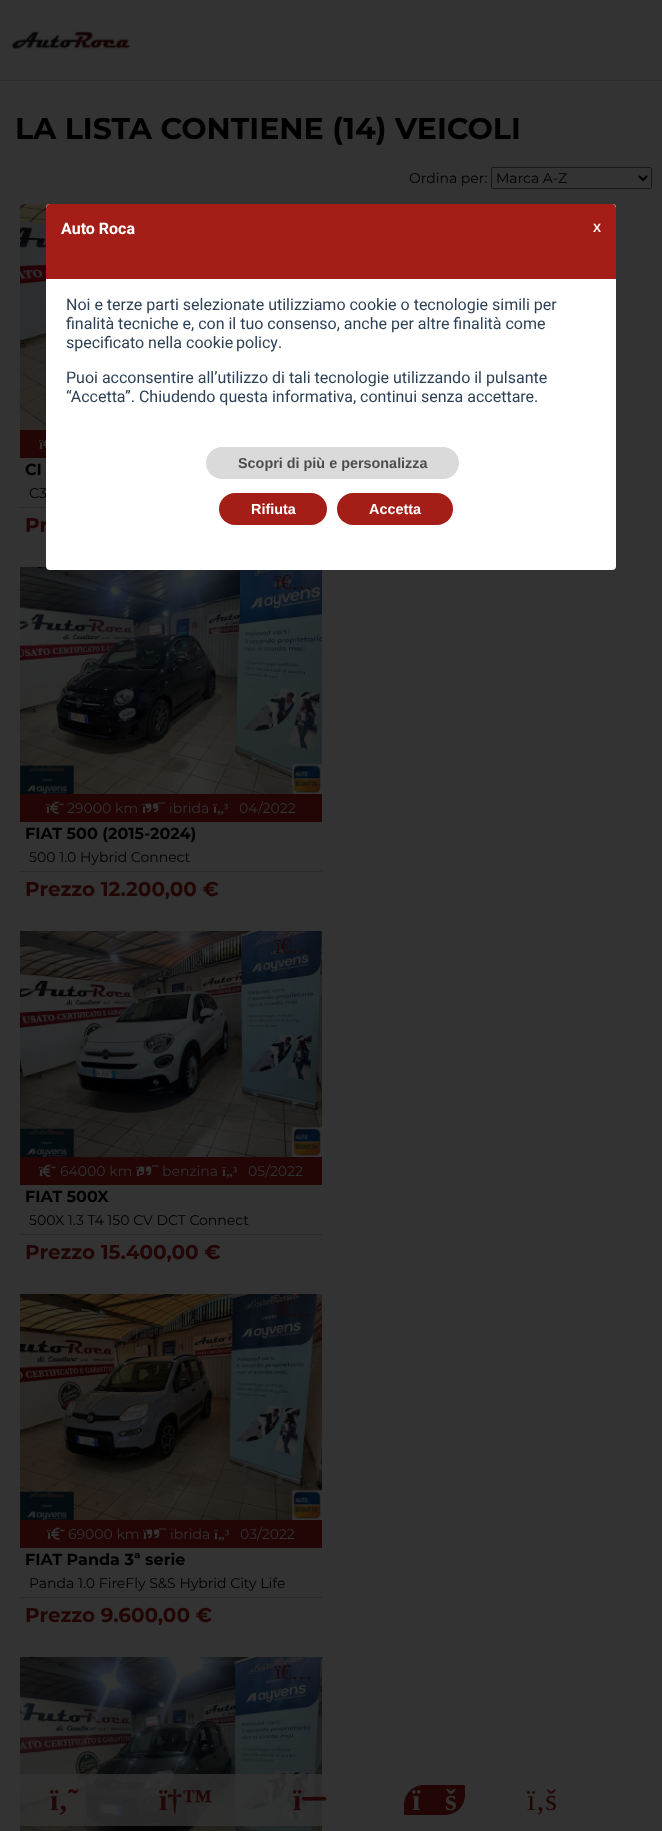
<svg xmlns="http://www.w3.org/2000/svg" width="662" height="1831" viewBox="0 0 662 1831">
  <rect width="100%" height="100%" fill="#333333"/>
  <text x="15" y="139" font-family="Montserrat" font-size="30" font-weight="bold" fill="#000000">LA LISTA CONTIENE (14) VEICOLI</text>
  <text x="409" y="183" font-family="Montserrat" font-size="14" fill="#000000">Ordina per:</text>
  <rect x="491.5" y="167.5" width="160" height="21" rx="1.5" fill="none" stroke="#181818"/>
  <path d="M639 176L643 180L647 176" fill="none" stroke="#000000" stroke-width="2"/>
  <text x="496" y="183" font-family="Montserrat" font-size="14" fill="#000000">Marca A-Z</text>
  <image x="20" y="204" width="30" height="226" href="img1.png"/>
  <rect x="20" y="430" width="26" height="28" fill="#210605"/>
  <text x="39" y="449" font-family="Liberation Serif" font-size="14" font-weight="bold" fill="#333333">ï</text>
  <image x="43" y="439" width="3" height="9" href="img2.png"/>
  <text x="25" y="475" font-family="Montserrat" font-size="16" font-weight="bold" fill="#000000">CI</text>
  <text x="29" y="498" font-family="Montserrat" font-size="14" fill="#000000">C3</text>
  <rect x="20" y="507" width="26" height="1" fill="#2a2a2a"/>
  <text x="25" y="532" font-family="Montserrat" font-size="20" font-weight="bold" fill="#210605">Pr</text>
  <image x="20" y="567" width="302" height="227" href="img3.png"/>
  <text x="275" y="589" font-family="Liberation Serif" font-size="21" fill="#210605">ï€…</text>
  <rect x="20" y="794" width="302" height="28" fill="#210605"/>
  <image x="50" y="801" width="9" height="13" href="img4.png"/>
  <text x="46" y="813" font-family="Liberation Serif" font-size="14" font-weight="bold" fill="#333333">ï</text>
  <text x="59" y="813" font-family="Liberation Serif" font-size="14" font-weight="bold" fill="#333333">˜</text>
  <text x="67" y="813" font-family="Montserrat" font-size="14" fill="#333333">29000 km</text>
  <text x="142" y="813" font-family="Liberation Serif" font-size="14" font-weight="bold" fill="#333333">ï</text>
  <image x="146" y="803" width="13" height="10" href="img5.png"/>
  <text x="158" y="813" font-family="Liberation Serif" font-size="14" font-weight="bold" fill="#333333">¯</text>
  <text x="169" y="813" font-family="Montserrat" font-size="14" fill="#333333">ibrida</text>
  <text x="213" y="813" font-family="Liberation Serif" font-size="14" font-weight="bold" fill="#333333">ï„³</text>
  <text x="239" y="813" font-family="Montserrat" font-size="14" fill="#333333">04/2022</text>
  <text x="25" y="839" font-family="Montserrat" font-size="16" font-weight="bold" fill="#000000">FIAT 500 (2015-2024)</text>
  <text x="29" y="862" font-family="Montserrat" font-size="14" fill="#000000">500 1.0 Hybrid Connect</text>
  <rect x="20" y="871" width="302" height="1" fill="#2a2a2a"/>
  <text x="25" y="896" font-family="Montserrat" font-size="20" font-weight="bold" fill="#210605">Prezzo 12.200,00 €</text>
  <image x="20" y="931" width="302" height="226" href="img6.png"/>
  <text x="275" y="953" font-family="Liberation Serif" font-size="21" fill="#210605">ï€…</text>
  <rect x="20" y="1157" width="302" height="28" fill="#210605"/>
  <image x="42" y="1164" width="9" height="13" href="img4.png"/>
  <text x="39" y="1176" font-family="Liberation Serif" font-size="14" font-weight="bold" fill="#333333">ï</text>
  <text x="51" y="1176" font-family="Liberation Serif" font-size="14" font-weight="bold" fill="#333333">˜</text>
  <text x="60" y="1176" font-family="Montserrat" font-size="14" fill="#333333">64000 km</text>
  <image x="139" y="1166" width="13" height="10" href="img5.png"/>
  <text x="136" y="1176" font-family="Liberation Serif" font-size="14" font-weight="bold" fill="#333333">ï</text>
  <text x="152" y="1176" font-family="Liberation Serif" font-size="14" font-weight="bold" fill="#333333">¯</text>
  <text x="162" y="1176" font-family="Montserrat" font-size="14" fill="#333333">benzina</text>
  <text x="222" y="1176" font-family="Liberation Serif" font-size="14" font-weight="bold" fill="#333333">ï„³</text>
  <text x="248" y="1176" font-family="Montserrat" font-size="14" fill="#333333">05/2022</text>
  <text x="25" y="1202" font-family="Montserrat" font-size="16" font-weight="bold" fill="#000000">FIAT 500X</text>
  <text x="29" y="1225" font-family="Montserrat" font-size="14" fill="#000000">500X 1.3 T4 150 CV DCT Connect</text>
  <rect x="20" y="1234" width="302" height="1" fill="#2a2a2a"/>
  <text x="25" y="1259" font-family="Montserrat" font-size="20" font-weight="bold" fill="#210605">Prezzo 15.400,00 €</text>
  <image x="20" y="1294" width="302" height="226" href="img7.png"/>
  <text x="275" y="1316" font-family="Liberation Serif" font-size="21" fill="#210605">ï€…</text>
  <rect x="20" y="1520" width="302" height="28" fill="#210605"/>
  <text x="47" y="1539" font-family="Liberation Serif" font-size="14" font-weight="bold" fill="#333333">ï</text>
  <image x="51" y="1527" width="9" height="13" href="img4.png"/>
  <text x="60" y="1539" font-family="Liberation Serif" font-size="14" font-weight="bold" fill="#333333">˜</text>
  <text x="68" y="1539" font-family="Montserrat" font-size="14" fill="#333333">69000 km</text>
  <image x="147" y="1529" width="13" height="10" href="img5.png"/>
  <text x="143" y="1539" font-family="Liberation Serif" font-size="14" font-weight="bold" fill="#333333">ï</text>
  <text x="159" y="1539" font-family="Liberation Serif" font-size="14" font-weight="bold" fill="#333333">¯</text>
  <text x="170" y="1539" font-family="Montserrat" font-size="14" fill="#333333">ibrida</text>
  <text x="214" y="1539" font-family="Liberation Serif" font-size="14" font-weight="bold" fill="#333333">ï„³</text>
  <text x="240" y="1539" font-family="Montserrat" font-size="14" fill="#333333">03/2022</text>
  <text x="25" y="1565" font-family="Montserrat" font-size="16" font-weight="bold" fill="#000000">FIAT Panda 3ª serie</text>
  <text x="29" y="1588" font-family="Montserrat" font-size="14" fill="#000000">Panda 1.0 FireFly S&amp;S Hybrid City Life</text>
  <rect x="20" y="1597" width="302" height="1" fill="#2a2a2a"/>
  <text x="25" y="1622" font-family="Montserrat" font-size="20" font-weight="bold" fill="#210605">Prezzo 9.600,00 €</text>
  <image x="20" y="1657" width="302" height="174" href="img8.png"/>
  <text x="275" y="1679" font-family="Liberation Serif" font-size="21" fill="#210605">ï€…</text>
  <rect x="46" y="204" width="570" height="366" rx="4" fill="#ffffff"/>
  <path d="M50 204H612C614 204 616 206 616 208V279H46V208C46 206 48 204 50 204Z" fill="#a41e17"/>
  <text x="61" y="234" font-family="Roboto" font-size="16" font-weight="bold" fill="#ffffff">Auto Roca</text>
  <text x="593" y="232" font-family="Liberation Sans" font-size="12" font-weight="bold" fill="#ffffff">X</text>
  <rect x="206" y="447" width="253" height="32" rx="16" fill="#dadada"/>
  <text x="238" y="468" font-family="Liberation Sans" font-size="14.4" font-weight="bold" fill="#4d4d4d">Scopri di più e personalizza</text>
  <rect x="219" y="493" width="108" height="32" rx="16" fill="#a41e17"/>
  <text x="251" y="514" font-family="Liberation Sans" font-size="14.4" font-weight="bold" fill="#ffffff">Rifiuta</text>
  <rect x="337" y="493" width="116" height="32" rx="16" fill="#a41e17"/>
  <text x="369" y="514" font-family="Liberation Sans" font-size="14.4" font-weight="bold" fill="#ffffff">Accetta</text>
  <text x="66" y="310" font-family="Roboto" font-size="16" fill="#2d4156">Noi e terze parti selezionate utilizziamo cookie o tecnologie simili per</text>
  <text x="66" y="329" font-family="Roboto" font-size="16" fill="#2d4156">finalità tecniche e, con il tuo consenso, anche per altre finalità come</text>
  <text x="66" y="348" font-family="Roboto" font-size="16" fill="#2d4156">specificato nella</text>
  <text x="186" y="348" word-spacing="-1" font-family="Roboto" font-size="16" fill="#2d4156">cookie policy</text>
  <text x="278" y="348" font-family="Roboto" font-size="16" fill="#2d4156">.</text>
  <text x="66" y="383" font-family="Roboto" font-size="16" fill="#2d4156">Puoi acconsentire all’utilizzo di tali tecnologie utilizzando il pulsante</text>
  <text x="66" y="402" font-family="Roboto" font-size="16" fill="#2d4156">“Accetta”. Chiudendo questa informativa, continui senza accettare.</text>
  <rect x="0" y="80" width="662" height="1" fill="#2c2c2c"/>
  <image x="11" y="31" width="120" height="19" href="img9.png"/>
  <rect x="20" y="1774" width="302" height="52" fill="#333333" fill-opacity="0.8"/>
  <text x="50" y="1810" font-family="Liberation Serif" font-size="30" font-weight="bold" fill="#210605">ï‚˜</text>
  <text x="159" y="1810" font-family="Liberation Serif" font-size="30" font-weight="bold" fill="#210605">ï†™</text>
  <text x="293" y="1810" font-family="Liberation Serif" font-size="30" font-weight="bold" fill="#210605">ï</text>
  <image x="302" y="1796" width="25" height="5" href="img10.png"/>
  <path d="M424 1785H464C464.5 1785 465 1785.5 465 1786V1795C465 1806 456 1815 445 1815H405C404.5 1815 404 1814.5 404 1814V1805C404 1794 413 1785 424 1785Z" fill="#210605"/>
  <text x="412" y="1810" font-family="Liberation Serif" font-size="30" font-weight="bold" fill="#333333">ï</text>
  <text x="445" y="1810" font-family="Liberation Serif" font-size="30" font-weight="bold" fill="#333333">š</text>
  <text x="527" y="1810" font-family="Liberation Serif" font-size="30" fill="#210605">ï‚š</text>
</svg>
